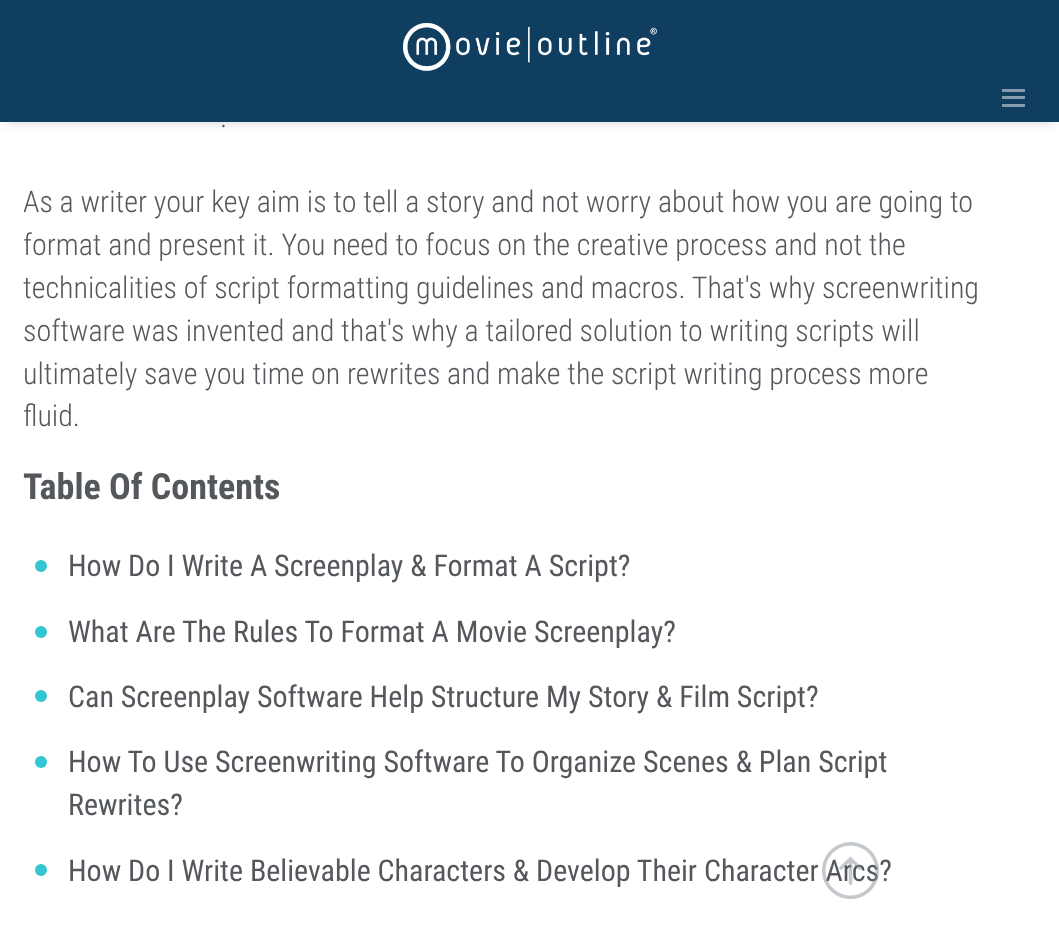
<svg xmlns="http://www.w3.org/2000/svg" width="1059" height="942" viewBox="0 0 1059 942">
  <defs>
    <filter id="blur1" x="-50%" y="-200%" width="200%" height="500%"><feGaussianBlur stdDeviation="7"/></filter>
  </defs>
  <rect width="100%" height="100%" fill="#ffffff"/>
  <rect x="6" y="11" width="1047" height="109" fill="#000000" fill-opacity="0.25" filter="url(#blur1)"/>
  <rect x="0" y="0" width="1059" height="122" fill="#103e60"/>
  <image x="403" y="23" width="254" height="48" href="img1.png"/>
  <rect x="1002" y="89" width="23" height="3" fill="#869baf"/>
  <rect x="1002" y="96" width="23" height="3" fill="#869baf"/>
  <rect x="1002" y="104" width="23" height="3" fill="#869baf"/>
  <text x="220" y="127" font-family="Roboto Condensed" font-size="30" font-weight="300" fill="#54585c">.</text>
  <text x="23" y="212" font-family="Roboto Condensed" font-size="30" font-weight="300" fill="#54585c">As a writer your key aim is to tell a story and not worry about how you are going to</text>
  <text x="23" y="255" font-family="Roboto Condensed" font-size="30" font-weight="300" fill="#54585c">format and present it. You need to focus on the creative process and not the</text>
  <text x="23" y="298" font-family="Roboto Condensed" font-size="30" font-weight="300" fill="#54585c">technicalities of script formatting guidelines and macros. That's why screenwriting</text>
  <text x="23" y="341" font-family="Roboto Condensed" font-size="30" font-weight="300" fill="#54585c">software was invented and that's why a tailored solution to writing scripts will</text>
  <text x="23" y="384" font-family="Roboto Condensed" font-size="30" font-weight="300" fill="#54585c">ultimately save you time on rewrites and make the script writing process more</text>
  <text x="23" y="426" font-family="Roboto Condensed" font-size="30" font-weight="300" fill="#54585c">fluid.</text>
  <text x="23" y="499" font-family="Roboto Condensed" font-size="36" font-weight="bold" fill="#54585c">Table Of Contents</text>
  <circle cx="41" cy="566" r="6" fill="#32c5d2"/>
  <text x="68" y="576" font-family="Roboto Condensed" font-size="30" fill="#54585c">How Do I Write A Screenplay &amp; Format A Script?</text>
  <circle cx="41" cy="632" r="6" fill="#32c5d2"/>
  <text x="68" y="642" font-family="Roboto Condensed" font-size="30" fill="#54585c">What Are The Rules To Format A Movie Screenplay?</text>
  <circle cx="41" cy="696" r="6" fill="#32c5d2"/>
  <text x="68" y="707" font-family="Roboto Condensed" font-size="30" fill="#54585c">Can Screenplay Software Help Structure My Story &amp; Film Script?</text>
  <circle cx="41" cy="762" r="6" fill="#32c5d2"/>
  <text x="68" y="772" font-family="Roboto Condensed" font-size="30" fill="#54585c">How To Use Screenwriting Software To Organize Scenes &amp; Plan Script</text>
  <text x="68" y="815" font-family="Roboto Condensed" font-size="30" fill="#54585c">Rewrites?</text>
  <circle cx="41" cy="870" r="6" fill="#32c5d2"/>
  <text x="68" y="881" font-family="Roboto Condensed" font-size="30" fill="#54585c">How Do I Write Believable Characters &amp; Develop Their Character Arcs?</text>
  <image x="822" y="842" width="57" height="57" href="img2.png"/>
</svg>
